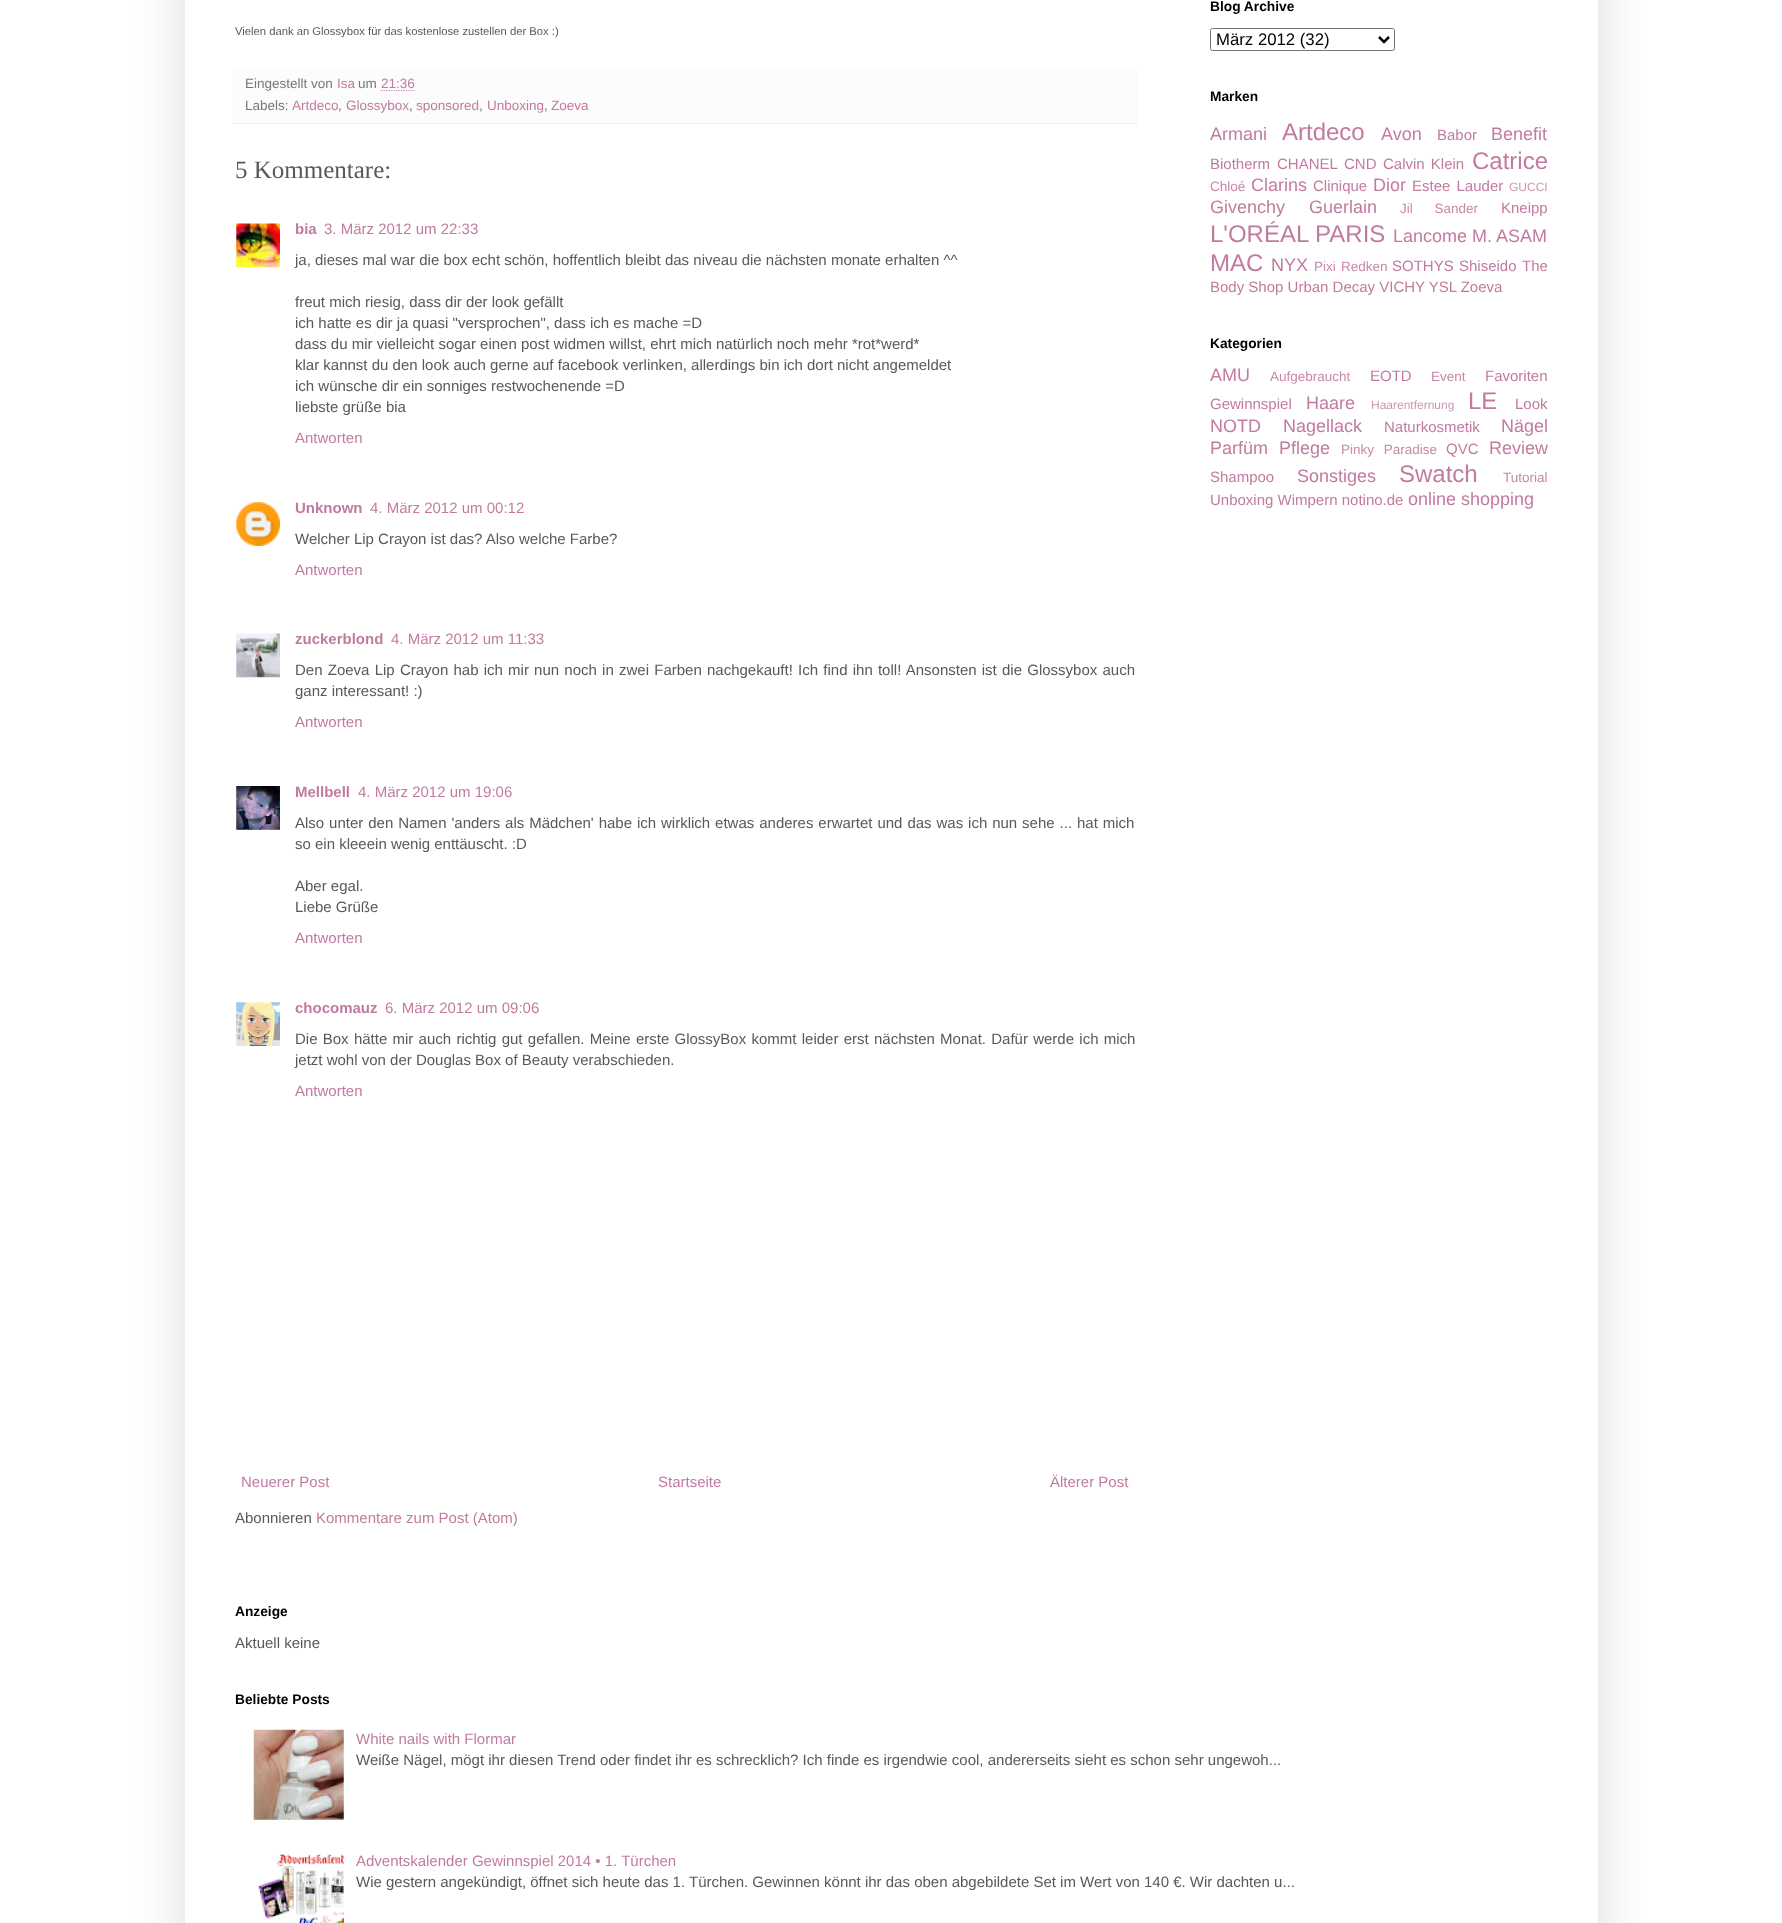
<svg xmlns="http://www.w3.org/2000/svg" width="1782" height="1923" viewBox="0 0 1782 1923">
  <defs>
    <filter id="blur1" x="-50%" y="-200%" width="200%" height="500%"><feGaussianBlur stdDeviation="25"/></filter>
  </defs>
  <rect width="100%" height="100%" fill="#ffffff"/>
  <rect x="185" y="-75" width="1413" height="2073" fill="#000000" fill-opacity="0.15" filter="url(#blur1)"/>
  <rect x="185" y="0" width="1413" height="1923" fill="#ffffff"/>
  <text x="235" y="35" font-family="Liberation Sans" font-size="11.25" fill="#595959">Vielen dank an Glossybox für das kostenlose zustellen der Box :)</text>
  <rect x="233" y="68" width="905" height="55" fill="#fcfcfc"/>
  <rect x="233" y="123" width="905" height="1" fill="#f1f1f1"/>
  <text x="245" y="88" font-family="Liberation Sans" font-size="13.5" fill="#787878">Eingestellt von</text>
  <text x="337" y="88" font-family="Liberation Sans" font-size="13.5" fill="#c27ba0">Isa</text>
  <text x="358" y="88" font-family="Liberation Sans" font-size="13.5" fill="#787878">um</text>
  <text x="381" y="88" font-family="Liberation Sans" font-size="13.5" fill="#c27ba0">21:36</text>
  <path d="M381 90.5H414.5" fill="none" stroke="#c27ba0" stroke-width="1.2" stroke-dasharray="1.25 1.25"/>
  <text x="245" y="110" font-family="Liberation Sans" font-size="13.5" fill="#787878">Labels:</text>
  <text x="292" y="110" font-family="Liberation Sans" font-size="13.5" fill="#c27ba0">Artdeco</text>
  <text x="338" y="110" font-family="Liberation Sans" font-size="13.5" fill="#787878">,</text>
  <text x="346" y="110" font-family="Liberation Sans" font-size="13.5" fill="#c27ba0">Glossybox</text>
  <text x="409" y="110" font-family="Liberation Sans" font-size="13.5" fill="#787878">,</text>
  <text x="416" y="110" font-family="Liberation Sans" font-size="13.5" fill="#c27ba0">sponsored</text>
  <text x="479" y="110" font-family="Liberation Sans" font-size="13.5" fill="#787878">,</text>
  <text x="487" y="110" font-family="Liberation Sans" font-size="13.5" fill="#c27ba0">Unboxing</text>
  <text x="544" y="110" font-family="Liberation Sans" font-size="13.5" fill="#787878">,</text>
  <text x="551" y="110" font-family="Liberation Sans" font-size="13.5" fill="#c27ba0">Zoeva</text>
  <text x="235" y="178" font-family="Liberation Serif" font-size="25" fill="#595959">5 Kommentare:</text>
  <image x="236" y="223" width="44" height="45" href="img1.png"/>
  <text x="295" y="234" font-family="Liberation Sans" font-size="15" font-weight="bold" fill="#c27ba0">bia</text>
  <text x="324" y="234" font-family="Liberation Sans" font-size="15" fill="#c27ba0">3. März 2012 um 22:33</text>
  <text x="295" y="265" font-family="Liberation Sans" font-size="15" fill="#595959">ja, dieses mal war die box echt schön, hoffentlich bleibt das niveau die nächsten monate erhalten ^^</text>
  <text x="295" y="307" font-family="Liberation Sans" font-size="15" fill="#595959">freut mich riesig, dass dir der look gefällt</text>
  <text x="295" y="328" font-family="Liberation Sans" font-size="15" fill="#595959">ich hatte es dir ja quasi "versprochen", dass ich es mache =D</text>
  <text x="295" y="349" font-family="Liberation Sans" font-size="15" fill="#595959">dass du mir vielleicht sogar einen post widmen willst, ehrt mich natürlich noch mehr *rot*werd*</text>
  <text x="295" y="370" font-family="Liberation Sans" font-size="15" fill="#595959">klar kannst du den look auch gerne auf facebook verlinken, allerdings bin ich dort nicht angemeldet</text>
  <text x="295" y="391" font-family="Liberation Sans" font-size="15" fill="#595959">ich wünsche dir ein sonniges restwochenende =D</text>
  <text x="295" y="412" font-family="Liberation Sans" font-size="15" fill="#595959">liebste grüße bia</text>
  <text x="295" y="443" font-family="Liberation Sans" font-size="15" fill="#c27ba0">Antworten</text>
  <image x="236" y="502" width="44" height="44" href="img2.png"/>
  <text x="295" y="513" font-family="Liberation Sans" font-size="15" font-weight="bold" fill="#c27ba0">Unknown</text>
  <text x="370" y="513" font-family="Liberation Sans" font-size="15" fill="#c27ba0">4. März 2012 um 00:12</text>
  <text x="295" y="544" font-family="Liberation Sans" font-size="15" fill="#595959">Welcher Lip Crayon ist das? Also welche Farbe?</text>
  <text x="295" y="575" font-family="Liberation Sans" font-size="15" fill="#c27ba0">Antworten</text>
  <image x="236" y="633" width="44" height="45" href="img3.png"/>
  <text x="295" y="644" font-family="Liberation Sans" font-size="15" font-weight="bold" fill="#c27ba0">zuckerblond</text>
  <text x="391" y="644" font-family="Liberation Sans" font-size="15" fill="#c27ba0">4. März 2012 um 11:33</text>
  <text x="295" y="675" word-spacing="1.05" font-family="Liberation Sans" font-size="15" fill="#595959">Den Zoeva Lip Crayon hab ich mir nun noch in zwei Farben nachgekauft! Ich find ihn toll! Ansonsten ist die Glossybox auch</text>
  <text x="295" y="696" font-family="Liberation Sans" font-size="15" fill="#595959">ganz interessant! :)</text>
  <text x="295" y="727" font-family="Liberation Sans" font-size="15" fill="#c27ba0">Antworten</text>
  <image x="236" y="786" width="44" height="44" href="img4.png"/>
  <text x="295" y="797" font-family="Liberation Sans" font-size="15" font-weight="bold" fill="#c27ba0">Mellbell</text>
  <text x="358" y="797" font-family="Liberation Sans" font-size="15" fill="#c27ba0">4. März 2012 um 19:06</text>
  <text x="295" y="828" word-spacing="0.75" font-family="Liberation Sans" font-size="15" fill="#595959">Also unter den Namen 'anders als Mädchen' habe ich wirklich etwas anderes erwartet und das was ich nun sehe ... hat mich</text>
  <text x="295" y="849" font-family="Liberation Sans" font-size="15" fill="#595959">so ein kleeein wenig enttäuscht. :D</text>
  <text x="295" y="891" font-family="Liberation Sans" font-size="15" fill="#595959">Aber egal.</text>
  <text x="295" y="912" font-family="Liberation Sans" font-size="15" fill="#595959">Liebe Grüße</text>
  <text x="295" y="943" font-family="Liberation Sans" font-size="15" fill="#c27ba0">Antworten</text>
  <image x="236" y="1002" width="44" height="44" href="img5.png"/>
  <text x="295" y="1013" font-family="Liberation Sans" font-size="15" font-weight="bold" fill="#c27ba0">chocomauz</text>
  <text x="385" y="1013" font-family="Liberation Sans" font-size="15" fill="#c27ba0">6. März 2012 um 09:06</text>
  <text x="295" y="1044" word-spacing="1.1" font-family="Liberation Sans" font-size="15" fill="#595959">Die Box hätte mir auch richtig gut gefallen. Meine erste GlossyBox kommt leider erst nächsten Monat. Dafür werde ich mich</text>
  <text x="295" y="1065" font-family="Liberation Sans" font-size="15" fill="#595959">jetzt wohl von der Douglas Box of Beauty verabschieden.</text>
  <text x="295" y="1096" font-family="Liberation Sans" font-size="15" fill="#c27ba0">Antworten</text>
  <text x="241" y="1487" font-family="Liberation Sans" font-size="15" fill="#c27ba0">Neuerer Post</text>
  <text x="658" y="1487" font-family="Liberation Sans" font-size="15" fill="#c27ba0">Startseite</text>
  <text x="1050" y="1487" font-family="Liberation Sans" font-size="15" fill="#c27ba0">Älterer Post</text>
  <text x="235" y="1523" font-family="Liberation Sans" font-size="15" fill="#595959">Abonnieren</text>
  <text x="316" y="1523" font-family="Liberation Sans" font-size="15" fill="#c27ba0">Kommentare zum Post (Atom)</text>
  <text x="1210" y="11" font-family="Liberation Sans" font-size="13.75" font-weight="bold" fill="#000000">Blog Archive</text>
  <rect x="1210.5" y="28.5" width="184" height="22" rx="2" fill="none" stroke="#767676"/>
  <path d="M1379 37L1384 42L1389 37" fill="none" stroke="#000000" stroke-width="2.5"/>
  <text x="1216" y="45" font-family="Liberation Sans" font-size="16.75" fill="#000000">März 2012 (32)</text>
  <text x="1210" y="101" font-family="Liberation Sans" font-size="13.75" font-weight="bold" fill="#000000">Marken</text>
  <text x="1210" y="140" font-family="Liberation Sans" font-size="18" fill="#c27ba0">Armani</text>
  <text x="1282" y="140" font-family="Liberation Sans" font-size="24" fill="#c27ba0">Artdeco</text>
  <text x="1381" y="140" font-family="Liberation Sans" font-size="18" fill="#c27ba0">Avon</text>
  <text x="1437" y="140" font-family="Liberation Sans" font-size="15" fill="#c27ba0">Babor</text>
  <text x="1491" y="140" font-family="Liberation Sans" font-size="18" fill="#c27ba0">Benefit</text>
  <text x="1210" y="169" font-family="Liberation Sans" font-size="15" fill="#c27ba0">Biotherm</text>
  <text x="1277" y="169" font-family="Liberation Sans" font-size="15" fill="#c27ba0">CHANEL</text>
  <text x="1344" y="169" font-family="Liberation Sans" font-size="15" fill="#c27ba0">CND</text>
  <text x="1383" y="169" word-spacing="2" font-family="Liberation Sans" font-size="15" fill="#c27ba0">Calvin Klein</text>
  <text x="1472" y="169" font-family="Liberation Sans" font-size="24" fill="#c27ba0">Catrice</text>
  <text x="1210" y="191" font-family="Liberation Sans" font-size="13.5" fill="#c888aa">Chloé</text>
  <text x="1251" y="191" font-family="Liberation Sans" font-size="18" fill="#c27ba0">Clarins</text>
  <text x="1313" y="191" font-family="Liberation Sans" font-size="15" fill="#c27ba0">Clinique</text>
  <text x="1373" y="191" font-family="Liberation Sans" font-size="18" fill="#c27ba0">Dior</text>
  <text x="1412" y="191" word-spacing="2" font-family="Liberation Sans" font-size="15" fill="#c27ba0">Estee Lauder</text>
  <text x="1509" y="191" font-family="Liberation Sans" font-size="12" fill="#ce95b3">GUCCI</text>
  <text x="1210" y="213" font-family="Liberation Sans" font-size="18" fill="#c27ba0">Givenchy</text>
  <text x="1309" y="213" font-family="Liberation Sans" font-size="18" fill="#c27ba0">Guerlain</text>
  <text x="1400" y="213" word-spacing="18" font-family="Liberation Sans" font-size="13.5" fill="#c888aa">Jil Sander</text>
  <text x="1501" y="213" font-family="Liberation Sans" font-size="15" fill="#c27ba0">Kneipp</text>
  <text x="1210" y="242" font-family="Liberation Sans" font-size="24" fill="#c27ba0">L'ORÉAL PARIS</text>
  <text x="1393" y="242" font-family="Liberation Sans" font-size="18" fill="#c27ba0">Lancome</text>
  <text x="1472" y="242" font-family="Liberation Sans" font-size="18" fill="#c27ba0">M. ASAM</text>
  <text x="1210" y="271" font-family="Liberation Sans" font-size="24" fill="#c27ba0">MAC</text>
  <text x="1271" y="271" font-family="Liberation Sans" font-size="18" fill="#c27ba0">NYX</text>
  <text x="1314" y="271" font-family="Liberation Sans" font-size="13.5" fill="#c888aa">Pixi</text>
  <text x="1341" y="271" font-family="Liberation Sans" font-size="13.5" fill="#c888aa">Redken</text>
  <text x="1392" y="271" font-family="Liberation Sans" font-size="15" fill="#c27ba0">SOTHYS</text>
  <text x="1459" y="271" font-family="Liberation Sans" font-size="15" fill="#c27ba0">Shiseido</text>
  <text x="1522" y="271" font-family="Liberation Sans" font-size="15" fill="#c27ba0">The</text>
  <text x="1210" y="292" font-family="Liberation Sans" font-size="15" fill="#c27ba0">Body Shop Urban Decay VICHY YSL Zoeva</text>
  <text x="1210" y="348" font-family="Liberation Sans" font-size="13.75" font-weight="bold" fill="#000000">Kategorien</text>
  <text x="1210" y="381" font-family="Liberation Sans" font-size="18" fill="#c27ba0">AMU</text>
  <text x="1270" y="381" font-family="Liberation Sans" font-size="13.5" fill="#c888aa">Aufgebraucht</text>
  <text x="1370" y="381" font-family="Liberation Sans" font-size="15" fill="#c27ba0">EOTD</text>
  <text x="1431" y="381" font-family="Liberation Sans" font-size="13.5" fill="#c888aa">Event</text>
  <text x="1485" y="381" font-family="Liberation Sans" font-size="15" fill="#c27ba0">Favoriten</text>
  <text x="1210" y="409" font-family="Liberation Sans" font-size="15" fill="#c27ba0">Gewinnspiel</text>
  <text x="1306" y="409" font-family="Liberation Sans" font-size="18" fill="#c27ba0">Haare</text>
  <text x="1371" y="409" font-family="Liberation Sans" font-size="12" fill="#ce95b3">Haarentfernung</text>
  <text x="1468" y="409" font-family="Liberation Sans" font-size="24" fill="#c27ba0">LE</text>
  <text x="1515" y="409" font-family="Liberation Sans" font-size="15" fill="#c27ba0">Look</text>
  <text x="1210" y="432" font-family="Liberation Sans" font-size="18" fill="#c27ba0">NOTD</text>
  <text x="1283" y="432" font-family="Liberation Sans" font-size="18" fill="#c27ba0">Nagellack</text>
  <text x="1384" y="432" font-family="Liberation Sans" font-size="15" fill="#c27ba0">Naturkosmetik</text>
  <text x="1501" y="432" font-family="Liberation Sans" font-size="18" fill="#c27ba0">Nägel</text>
  <text x="1210" y="454" font-family="Liberation Sans" font-size="18" fill="#c27ba0">Parfüm</text>
  <text x="1279" y="454" font-family="Liberation Sans" font-size="18" fill="#c27ba0">Pflege</text>
  <text x="1341" y="454" word-spacing="6" font-family="Liberation Sans" font-size="13.5" fill="#c888aa">Pinky Paradise</text>
  <text x="1446" y="454" font-family="Liberation Sans" font-size="15" fill="#c27ba0">QVC</text>
  <text x="1489" y="454" font-family="Liberation Sans" font-size="18" fill="#c27ba0">Review</text>
  <text x="1210" y="482" font-family="Liberation Sans" font-size="15" fill="#c27ba0">Shampoo</text>
  <text x="1297" y="482" font-family="Liberation Sans" font-size="18" fill="#c27ba0">Sonstiges</text>
  <text x="1399" y="482" font-family="Liberation Sans" font-size="24" fill="#c27ba0">Swatch</text>
  <text x="1503" y="482" font-family="Liberation Sans" font-size="13.5" fill="#c888aa">Tutorial</text>
  <text x="1210" y="505" font-family="Liberation Sans" font-size="15" fill="#c27ba0">Unboxing Wimpern notino.de</text>
  <text x="1408" y="505" font-family="Liberation Sans" font-size="18" fill="#c27ba0">online shopping</text>
  <text x="235" y="1616" font-family="Liberation Sans" font-size="13.75" font-weight="bold" fill="#000000">Anzeige</text>
  <text x="235" y="1648" font-family="Liberation Sans" font-size="15" fill="#595959">Aktuell keine</text>
  <text x="235" y="1704" font-family="Liberation Sans" font-size="13.75" font-weight="bold" fill="#000000">Beliebte Posts</text>
  <image x="253" y="1729" width="91" height="91" href="img6.png"/>
  <text x="356" y="1744" font-family="Liberation Sans" font-size="15" fill="#c27ba0">White nails with Flormar</text>
  <text x="356" y="1765" font-family="Liberation Sans" font-size="15" fill="#595959">Weiße Nägel, mögt ihr diesen Trend oder findet ihr es schrecklich? Ich finde es irgendwie cool, andererseits sieht es schon sehr ungewoh...</text>
  <image x="258" y="1854" width="86" height="69" href="img7.png"/>
  <text x="356" y="1866" font-family="Liberation Sans" font-size="15" fill="#c27ba0">Adventskalender Gewinnspiel 2014 • 1. Türchen</text>
  <text x="356" y="1887" font-family="Liberation Sans" font-size="15" fill="#595959">Wie gestern angekündigt, öffnet sich heute das 1. Türchen. Gewinnen könnt ihr das oben abgebildete Set im Wert von 140 €. Wir dachten u...</text>
</svg>
